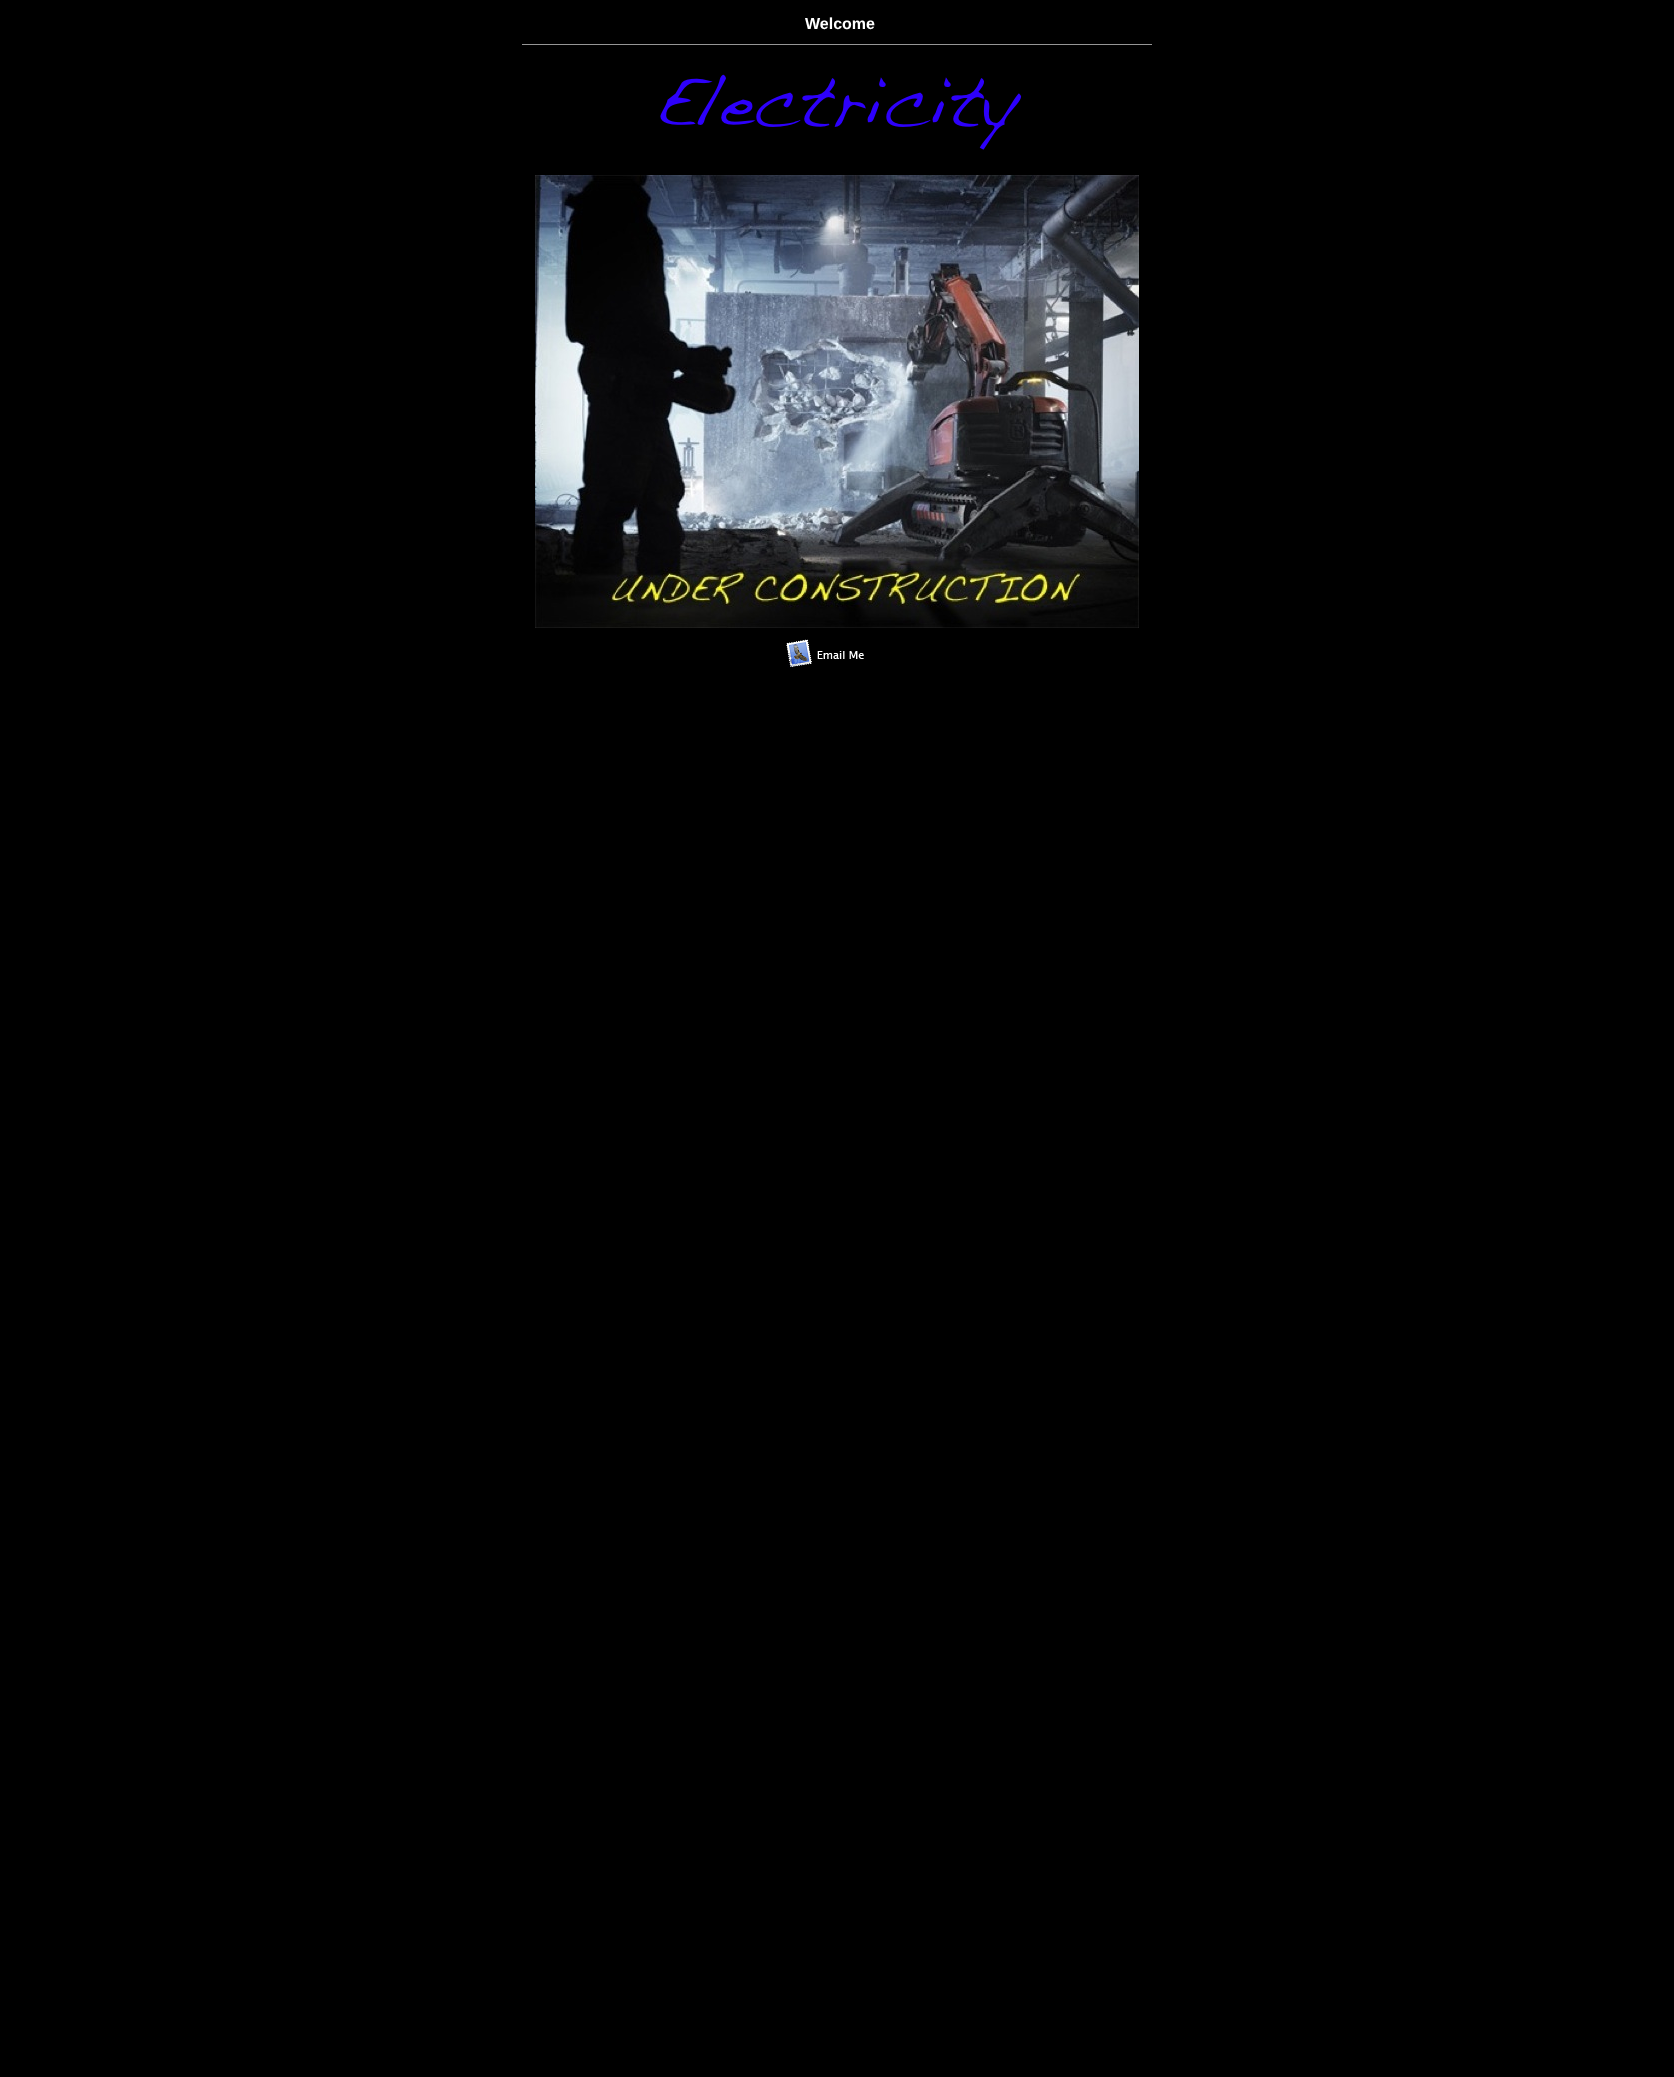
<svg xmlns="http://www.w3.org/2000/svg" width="1674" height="2077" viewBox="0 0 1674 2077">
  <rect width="100%" height="100%" fill="#000000"/>
  <text x="805" y="29" font-family="Liberation Sans" font-size="16" font-weight="bold" fill="#ffffff">Welcome</text>
  <rect x="522" y="44" width="630" height="1" fill="#969696"/>
  <image x="660" y="74" width="362" height="76" href="img1.png"/>
  <image x="535" y="175" width="604" height="453" href="img2.png"/>
  <image x="786" y="639" width="78" height="30" href="img3.png"/>
</svg>
